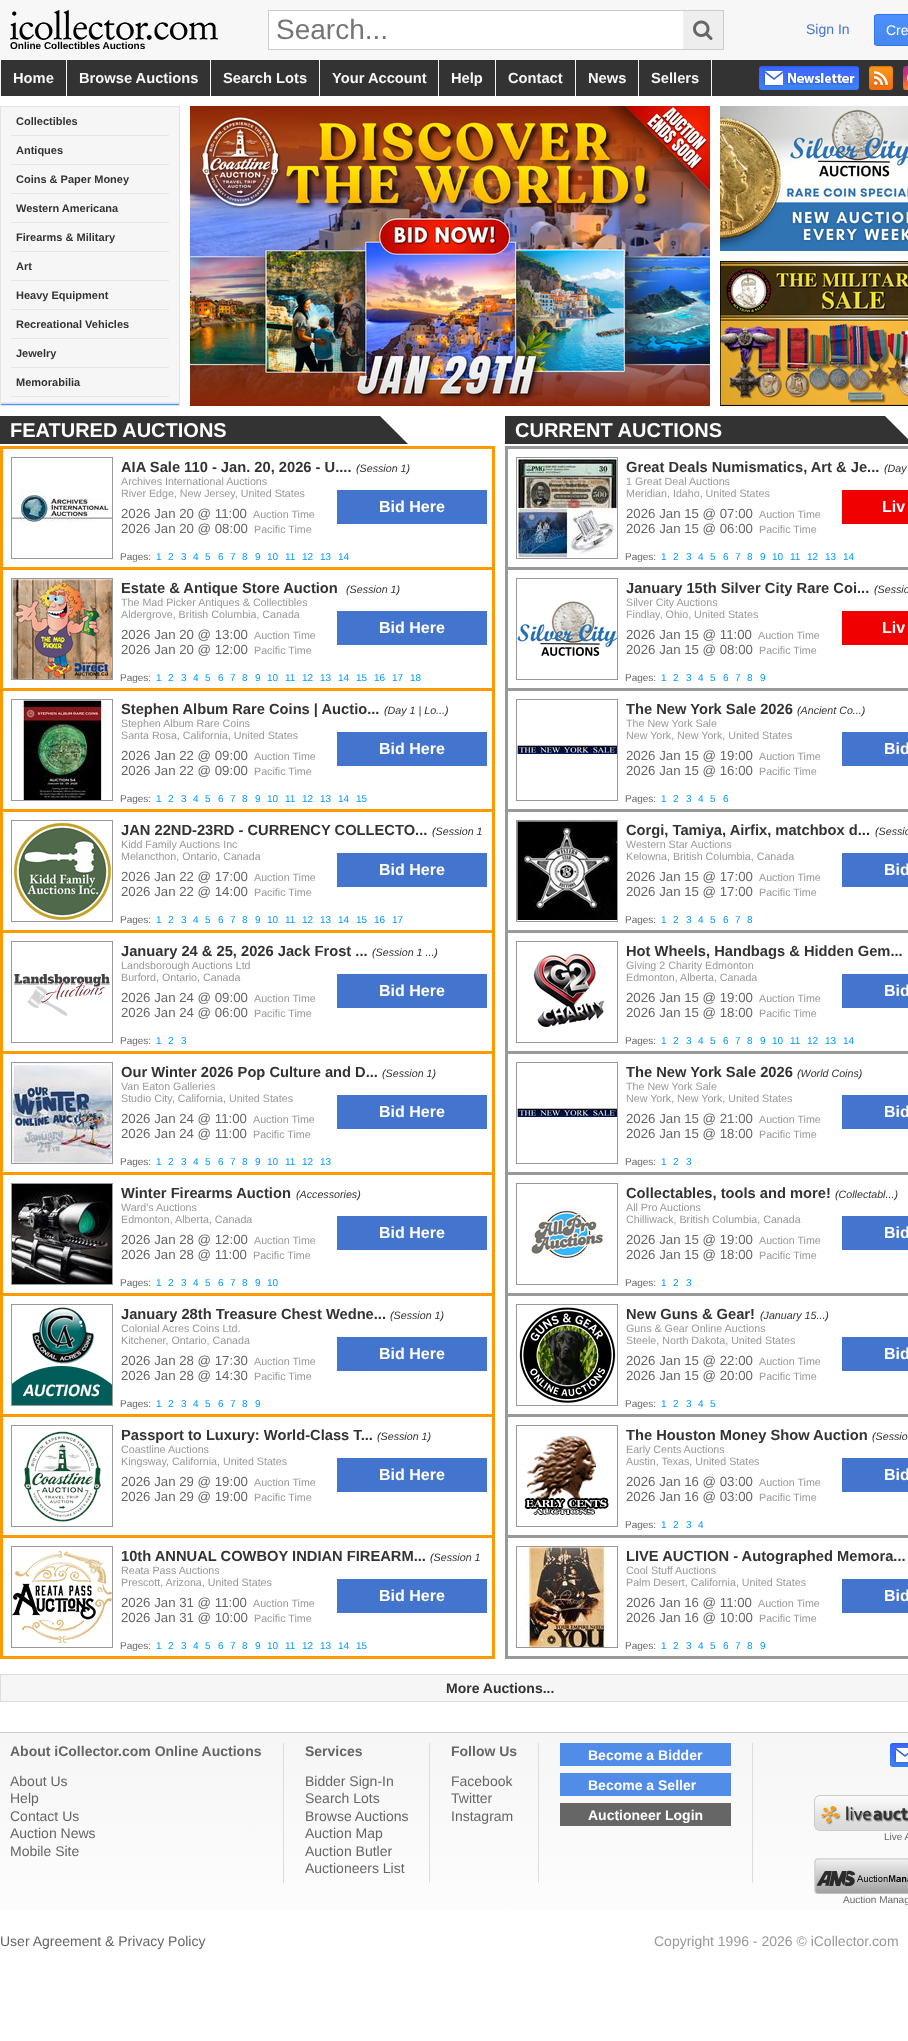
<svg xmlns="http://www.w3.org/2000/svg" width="908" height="2041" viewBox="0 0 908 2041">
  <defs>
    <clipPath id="clip1"><rect x="874" y="14" width="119" height="32" rx="3"/></clipPath>
    <linearGradient id="g1" gradientUnits="userSpaceOnUse" x1="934" y1="15" x2="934" y2="45"><stop offset="0" stop-color="#4d90fe"/><stop offset="1" stop-color="#4787ed"/></linearGradient>
    <clipPath id="clip2"><rect x="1" y="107" width="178" height="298"/></clipPath>
    <filter id="blur1" x="-50%" y="-200%" width="200%" height="500%"><feGaussianBlur stdDeviation="1.5"/></filter>
    <clipPath id="clip3"><rect x="121" y="701" width="360" height="16"/></clipPath>
    <linearGradient id="g2" gradientUnits="userSpaceOnUse" x1="454" y1="1733" x2="454" y2="1977"><stop offset="0" stop-color="#f6f6f6"/><stop offset="1" stop-color="#ffffff"/></linearGradient>
  </defs>
  <rect width="100%" height="100%" fill="#ffffff"/>
  <rect x="0" y="0" width="908" height="60" fill="#f7f7f7"/>
  <rect x="269" y="11" width="414" height="38" fill="#ffffff"/>
  <rect x="268" y="10" width="456" height="1" fill="#cccccc"/>
  <rect x="268" y="49" width="415" height="1" fill="#cccccc"/>
  <rect x="268" y="10" width="1" height="40" fill="#cccccc"/>
  <text x="276" y="39" font-family="Liberation Sans" font-size="28" fill="#757575">Search...</text>
  <rect x="683" y="11" width="40" height="38" fill="#eeeeee"/>
  <rect x="723" y="10" width="1" height="40" fill="#cccccc"/>
  <rect x="683" y="49" width="41" height="1" fill="#cccccc"/>
  <image x="693" y="20" width="20" height="20" href="img1.png"/>
  <text x="806" y="34" font-family="Liberation Sans" font-size="14" fill="#4374ce">Sign In</text>
  <g clip-path="url(#clip1)">
    <rect x="874" y="15" width="34" height="30" fill="url(#g1)"/>
  </g>
  <rect x="874.5" y="14.5" width="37" height="31" rx="2.5" fill="none" stroke="#3079ed"/>
  <text x="886" y="35" font-family="Liberation Sans" font-size="14" fill="#ffffff">Cre</text>
  <image x="10" y="10" width="208" height="30" href="img2.png"/>
  <text x="10" y="49" font-family="Liberation Sans" font-size="10" font-weight="bold" fill="#000000">Online Collectibles Auctions</text>
  <rect x="1" y="60" width="907" height="36" fill="#333333"/>
  <rect x="0" y="60" width="1" height="36" fill="#f7f7f7"/>
  <text x="13" y="83" font-family="Liberation Sans" font-size="14.7" font-weight="bold" fill="#f7f7f7">Home</text>
  <rect x="66" y="60" width="1" height="36" fill="#f7f7f7"/>
  <text x="79" y="83" font-family="Liberation Sans" font-size="14.7" font-weight="bold" fill="#f7f7f7">Browse Auctions</text>
  <rect x="210" y="60" width="1" height="36" fill="#f7f7f7"/>
  <text x="223" y="83" font-family="Liberation Sans" font-size="14.7" font-weight="bold" fill="#f7f7f7">Search Lots</text>
  <rect x="319" y="60" width="1" height="36" fill="#f7f7f7"/>
  <text x="332" y="83" font-family="Liberation Sans" font-size="14.7" font-weight="bold" fill="#f7f7f7">Your Account</text>
  <rect x="438" y="60" width="1" height="36" fill="#f7f7f7"/>
  <text x="451" y="83" font-family="Liberation Sans" font-size="14.7" font-weight="bold" fill="#f7f7f7">Help</text>
  <rect x="495" y="60" width="1" height="36" fill="#f7f7f7"/>
  <text x="508" y="83" font-family="Liberation Sans" font-size="14.7" font-weight="bold" fill="#f7f7f7">Contact</text>
  <rect x="575" y="60" width="1" height="36" fill="#f7f7f7"/>
  <text x="588" y="83" font-family="Liberation Sans" font-size="14.7" font-weight="bold" fill="#f7f7f7">News</text>
  <rect x="711" y="60" width="1" height="36" fill="#f7f7f7"/>
  <rect x="638" y="60" width="1" height="36" fill="#f7f7f7"/>
  <text x="651" y="83" font-family="Liberation Sans" font-size="14.7" font-weight="bold" fill="#f7f7f7">Sellers</text>
  <image x="759" y="66" width="100" height="24" href="img3.png"/>
  <image x="869" y="66" width="24" height="24" href="img4.png"/>
  <image x="903" y="66" width="5" height="24" href="img5.png"/>
  <rect x="1" y="107" width="178" height="297" fill="#f6f6f6"/>
  <rect x="0.5" y="106.5" width="179" height="299" fill="none" stroke="#e3e3e3"/>
  <rect x="11" y="135" width="158" height="1" fill="#e6e6e6"/>
  <text x="16" y="125" font-family="Liberation Sans" font-size="11" font-weight="bold" fill="#333333">Collectibles</text>
  <rect x="11" y="164" width="158" height="1" fill="#e6e6e6"/>
  <text x="16" y="154" font-family="Liberation Sans" font-size="11" font-weight="bold" fill="#333333">Antiques</text>
  <rect x="11" y="193" width="158" height="1" fill="#e6e6e6"/>
  <text x="16" y="183" font-family="Liberation Sans" font-size="11" font-weight="bold" fill="#333333">Coins &amp; Paper Money</text>
  <rect x="11" y="222" width="158" height="1" fill="#e6e6e6"/>
  <text x="16" y="212" font-family="Liberation Sans" font-size="11" font-weight="bold" fill="#333333">Western Americana</text>
  <rect x="11" y="251" width="158" height="1" fill="#e6e6e6"/>
  <text x="16" y="241" font-family="Liberation Sans" font-size="11" font-weight="bold" fill="#333333">Firearms &amp; Military</text>
  <rect x="11" y="280" width="158" height="1" fill="#e6e6e6"/>
  <text x="16" y="270" font-family="Liberation Sans" font-size="11" font-weight="bold" fill="#333333">Art</text>
  <rect x="11" y="309" width="158" height="1" fill="#e6e6e6"/>
  <text x="16" y="299" font-family="Liberation Sans" font-size="11" font-weight="bold" fill="#333333">Heavy Equipment</text>
  <rect x="11" y="338" width="158" height="1" fill="#e6e6e6"/>
  <text x="16" y="328" font-family="Liberation Sans" font-size="11" font-weight="bold" fill="#333333">Recreational Vehicles</text>
  <rect x="11" y="367" width="158" height="1" fill="#e6e6e6"/>
  <text x="16" y="357" font-family="Liberation Sans" font-size="11" font-weight="bold" fill="#333333">Jewelry</text>
  <rect x="11" y="396" width="158" height="1" fill="#e6e6e6"/>
  <text x="16" y="386" font-family="Liberation Sans" font-size="11" font-weight="bold" fill="#333333">Memorabilia</text>
  <g clip-path="url(#clip2)">
    <rect x="1" y="404" width="178" height="1" fill="#4d90fe" filter="url(#blur1)"/>
  </g>
  <rect x="1" y="404" width="178" height="1" fill="#4d90fe"/>
  <image x="190" y="106" width="520" height="300" href="img6.png"/>
  <image x="720" y="106" width="188" height="145" href="img7.png"/>
  <image x="720" y="261" width="188" height="145" href="img8.png"/>
  <rect x="0" y="1656" width="495" height="3" fill="#ff9900"/>
  <rect x="0" y="416" width="408" height="28" fill="#333333"/>
  <text x="10" y="437" font-family="Liberation Sans" font-size="20" font-weight="bold" fill="#ffffff">FEATURED AUCTIONS</text>
  <path d="M410 416V446L380 416Z" fill="#ffffff"/>
  <rect x="0" y="446" width="495" height="3" fill="#ff9900"/>
  <rect x="492" y="446" width="3" height="121" fill="#ff9900"/>
  <rect x="0" y="446" width="3" height="121" fill="#ff9900"/>
  <rect x="11.5" y="457.5" width="101" height="101" fill="none" stroke="#999999"/>
  <image x="12" y="490" width="100" height="33" href="img9.png"/>
  <text x="121" y="472" font-family="Liberation Sans" font-size="14.7" font-weight="bold" fill="#333333">AIA Sale 110 - Jan. 20, 2026 - U....</text>
  <text x="356" y="472" font-family="Liberation Sans" font-size="10.7" font-style="italic" fill="#333333">(Session 1)</text>
  <text x="121" y="485" font-family="Liberation Sans" font-size="10.7" fill="#999999">Archives International Auctions</text>
  <text x="121" y="497" font-family="Liberation Sans" font-size="10.7" fill="#999999">River Edge, New Jersey, United States</text>
  <text x="121" y="518" font-family="Liberation Sans" font-size="13.25" fill="#666666">2026 Jan 20 @ 11:00</text>
  <text x="253" y="518" font-family="Liberation Sans" font-size="10.7" fill="#999999">Auction Time</text>
  <rect x="337" y="490" width="150" height="34" fill="#4374ce"/>
  <text x="379" y="512" font-family="Liberation Sans" font-size="16" font-weight="bold" fill="#ffffff">Bid Here</text>
  <text x="121" y="533" font-family="Liberation Sans" font-size="13.25" fill="#666666">2026 Jan 20 @ 08:00</text>
  <text x="254" y="533" font-family="Liberation Sans" font-size="10.7" fill="#999999">Pacific Time</text>
  <text x="120" y="560" font-family="Liberation Sans" font-size="10" fill="#666666">Pages:</text>
  <text x="156" y="560" font-family="Liberation Sans" font-size="10" fill="#0099ff">1</text>
  <text x="168" y="560" font-family="Liberation Sans" font-size="10" fill="#0099ff">2</text>
  <text x="181" y="560" font-family="Liberation Sans" font-size="10" fill="#0099ff">3</text>
  <text x="193" y="560" font-family="Liberation Sans" font-size="10" fill="#0099ff">4</text>
  <text x="205" y="560" font-family="Liberation Sans" font-size="10" fill="#0099ff">5</text>
  <text x="218" y="560" font-family="Liberation Sans" font-size="10" fill="#0099ff">6</text>
  <text x="230" y="560" font-family="Liberation Sans" font-size="10" fill="#0099ff">7</text>
  <text x="242" y="560" font-family="Liberation Sans" font-size="10" fill="#0099ff">8</text>
  <text x="255" y="560" font-family="Liberation Sans" font-size="10" fill="#0099ff">9</text>
  <text x="267" y="560" font-family="Liberation Sans" font-size="10" fill="#0099ff">10</text>
  <text x="285" y="560" font-family="Liberation Sans" font-size="10" fill="#0099ff">11</text>
  <text x="302" y="560" font-family="Liberation Sans" font-size="10" fill="#0099ff">12</text>
  <text x="320" y="560" font-family="Liberation Sans" font-size="10" fill="#0099ff">13</text>
  <text x="338" y="560" font-family="Liberation Sans" font-size="10" fill="#0099ff">14</text>
  <rect x="0" y="567" width="495" height="3" fill="#ff9900"/>
  <rect x="492" y="567" width="3" height="121" fill="#ff9900"/>
  <rect x="0" y="567" width="3" height="121" fill="#ff9900"/>
  <rect x="11.5" y="578.5" width="101" height="101" fill="none" stroke="#999999"/>
  <image x="12" y="579" width="100" height="100" href="img10.png"/>
  <text x="121" y="593" font-family="Liberation Sans" font-size="14.7" font-weight="bold" fill="#333333">Estate &amp; Antique Store Auction</text>
  <text x="346" y="593" font-family="Liberation Sans" font-size="10.7" font-style="italic" fill="#333333">(Session 1)</text>
  <text x="121" y="606" font-family="Liberation Sans" font-size="10.7" fill="#999999">The Mad Picker Antiques &amp; Collectibles</text>
  <text x="121" y="618" font-family="Liberation Sans" font-size="10.7" fill="#999999">Aldergrove, British Columbia, Canada</text>
  <text x="121" y="639" font-family="Liberation Sans" font-size="13.25" fill="#666666">2026 Jan 20 @ 13:00</text>
  <text x="254" y="639" font-family="Liberation Sans" font-size="10.7" fill="#999999">Auction Time</text>
  <rect x="337" y="611" width="150" height="34" fill="#4374ce"/>
  <text x="379" y="633" font-family="Liberation Sans" font-size="16" font-weight="bold" fill="#ffffff">Bid Here</text>
  <text x="121" y="654" font-family="Liberation Sans" font-size="13.25" fill="#666666">2026 Jan 20 @ 12:00</text>
  <text x="254" y="654" font-family="Liberation Sans" font-size="10.7" fill="#999999">Pacific Time</text>
  <text x="120" y="681" font-family="Liberation Sans" font-size="10" fill="#666666">Pages:</text>
  <text x="156" y="681" font-family="Liberation Sans" font-size="10" fill="#0099ff">1</text>
  <text x="168" y="681" font-family="Liberation Sans" font-size="10" fill="#0099ff">2</text>
  <text x="181" y="681" font-family="Liberation Sans" font-size="10" fill="#0099ff">3</text>
  <text x="193" y="681" font-family="Liberation Sans" font-size="10" fill="#0099ff">4</text>
  <text x="205" y="681" font-family="Liberation Sans" font-size="10" fill="#0099ff">5</text>
  <text x="218" y="681" font-family="Liberation Sans" font-size="10" fill="#0099ff">6</text>
  <text x="230" y="681" font-family="Liberation Sans" font-size="10" fill="#0099ff">7</text>
  <text x="242" y="681" font-family="Liberation Sans" font-size="10" fill="#0099ff">8</text>
  <text x="255" y="681" font-family="Liberation Sans" font-size="10" fill="#0099ff">9</text>
  <text x="267" y="681" font-family="Liberation Sans" font-size="10" fill="#0099ff">10</text>
  <text x="285" y="681" font-family="Liberation Sans" font-size="10" fill="#0099ff">11</text>
  <text x="302" y="681" font-family="Liberation Sans" font-size="10" fill="#0099ff">12</text>
  <text x="320" y="681" font-family="Liberation Sans" font-size="10" fill="#0099ff">13</text>
  <text x="338" y="681" font-family="Liberation Sans" font-size="10" fill="#0099ff">14</text>
  <text x="356" y="681" font-family="Liberation Sans" font-size="10" fill="#0099ff">15</text>
  <text x="374" y="681" font-family="Liberation Sans" font-size="10" fill="#0099ff">16</text>
  <text x="392" y="681" font-family="Liberation Sans" font-size="10" fill="#0099ff">17</text>
  <text x="410" y="681" font-family="Liberation Sans" font-size="10" fill="#0099ff">18</text>
  <rect x="0" y="688" width="495" height="3" fill="#ff9900"/>
  <rect x="492" y="688" width="3" height="121" fill="#ff9900"/>
  <rect x="0" y="688" width="3" height="121" fill="#ff9900"/>
  <rect x="11.5" y="699.5" width="101" height="101" fill="none" stroke="#999999"/>
  <image x="12" y="700" width="96" height="100" href="img11.png"/>
  <g clip-path="url(#clip3)">
    <text x="121" y="714" font-family="Liberation Sans" font-size="14.7" font-weight="bold" fill="#333333">Stephen Album Rare Coins | Auctio...</text>
  </g>
  <text x="384" y="714" font-family="Liberation Sans" font-size="10.7" font-style="italic" fill="#333333">(Day 1 | Lo...)</text>
  <text x="121" y="727" font-family="Liberation Sans" font-size="10.7" fill="#999999">Stephen Album Rare Coins</text>
  <text x="121" y="739" font-family="Liberation Sans" font-size="10.7" fill="#999999">Santa Rosa, California, United States</text>
  <text x="121" y="760" font-family="Liberation Sans" font-size="13.25" fill="#666666">2026 Jan 22 @ 09:00</text>
  <text x="254" y="760" font-family="Liberation Sans" font-size="10.7" fill="#999999">Auction Time</text>
  <rect x="337" y="732" width="150" height="34" fill="#4374ce"/>
  <text x="379" y="754" font-family="Liberation Sans" font-size="16" font-weight="bold" fill="#ffffff">Bid Here</text>
  <text x="121" y="775" font-family="Liberation Sans" font-size="13.25" fill="#666666">2026 Jan 22 @ 09:00</text>
  <text x="254" y="775" font-family="Liberation Sans" font-size="10.7" fill="#999999">Pacific Time</text>
  <text x="120" y="802" font-family="Liberation Sans" font-size="10" fill="#666666">Pages:</text>
  <text x="156" y="802" font-family="Liberation Sans" font-size="10" fill="#0099ff">1</text>
  <text x="168" y="802" font-family="Liberation Sans" font-size="10" fill="#0099ff">2</text>
  <text x="181" y="802" font-family="Liberation Sans" font-size="10" fill="#0099ff">3</text>
  <text x="193" y="802" font-family="Liberation Sans" font-size="10" fill="#0099ff">4</text>
  <text x="205" y="802" font-family="Liberation Sans" font-size="10" fill="#0099ff">5</text>
  <text x="218" y="802" font-family="Liberation Sans" font-size="10" fill="#0099ff">6</text>
  <text x="230" y="802" font-family="Liberation Sans" font-size="10" fill="#0099ff">7</text>
  <text x="242" y="802" font-family="Liberation Sans" font-size="10" fill="#0099ff">8</text>
  <text x="255" y="802" font-family="Liberation Sans" font-size="10" fill="#0099ff">9</text>
  <text x="267" y="802" font-family="Liberation Sans" font-size="10" fill="#0099ff">10</text>
  <text x="285" y="802" font-family="Liberation Sans" font-size="10" fill="#0099ff">11</text>
  <text x="302" y="802" font-family="Liberation Sans" font-size="10" fill="#0099ff">12</text>
  <text x="320" y="802" font-family="Liberation Sans" font-size="10" fill="#0099ff">13</text>
  <text x="338" y="802" font-family="Liberation Sans" font-size="10" fill="#0099ff">14</text>
  <text x="356" y="802" font-family="Liberation Sans" font-size="10" fill="#0099ff">15</text>
  <rect x="0" y="809" width="495" height="3" fill="#ff9900"/>
  <rect x="492" y="809" width="3" height="121" fill="#ff9900"/>
  <rect x="0" y="809" width="3" height="121" fill="#ff9900"/>
  <rect x="11.5" y="820.5" width="101" height="101" fill="none" stroke="#999999"/>
  <image x="14" y="823" width="97" height="97" href="img12.png"/>
  <text x="121" y="835" font-family="Liberation Sans" font-size="14.7" font-weight="bold" fill="#333333">JAN 22ND-23RD - CURRENCY COLLECTO...</text>
  <text x="432" y="835" font-family="Liberation Sans" font-size="10.7" font-style="italic" fill="#333333">(Session 1</text>
  <text x="121" y="848" font-family="Liberation Sans" font-size="10.7" fill="#999999">Kidd Family Auctions Inc</text>
  <text x="121" y="860" font-family="Liberation Sans" font-size="10.7" fill="#999999">Melancthon, Ontario, Canada</text>
  <text x="121" y="881" font-family="Liberation Sans" font-size="13.25" fill="#666666">2026 Jan 22 @ 17:00</text>
  <text x="254" y="881" font-family="Liberation Sans" font-size="10.7" fill="#999999">Auction Time</text>
  <rect x="337" y="853" width="150" height="34" fill="#4374ce"/>
  <text x="379" y="875" font-family="Liberation Sans" font-size="16" font-weight="bold" fill="#ffffff">Bid Here</text>
  <text x="121" y="896" font-family="Liberation Sans" font-size="13.25" fill="#666666">2026 Jan 22 @ 14:00</text>
  <text x="254" y="896" font-family="Liberation Sans" font-size="10.7" fill="#999999">Pacific Time</text>
  <text x="120" y="923" font-family="Liberation Sans" font-size="10" fill="#666666">Pages:</text>
  <text x="156" y="923" font-family="Liberation Sans" font-size="10" fill="#0099ff">1</text>
  <text x="168" y="923" font-family="Liberation Sans" font-size="10" fill="#0099ff">2</text>
  <text x="181" y="923" font-family="Liberation Sans" font-size="10" fill="#0099ff">3</text>
  <text x="193" y="923" font-family="Liberation Sans" font-size="10" fill="#0099ff">4</text>
  <text x="205" y="923" font-family="Liberation Sans" font-size="10" fill="#0099ff">5</text>
  <text x="218" y="923" font-family="Liberation Sans" font-size="10" fill="#0099ff">6</text>
  <text x="230" y="923" font-family="Liberation Sans" font-size="10" fill="#0099ff">7</text>
  <text x="242" y="923" font-family="Liberation Sans" font-size="10" fill="#0099ff">8</text>
  <text x="255" y="923" font-family="Liberation Sans" font-size="10" fill="#0099ff">9</text>
  <text x="267" y="923" font-family="Liberation Sans" font-size="10" fill="#0099ff">10</text>
  <text x="285" y="923" font-family="Liberation Sans" font-size="10" fill="#0099ff">11</text>
  <text x="302" y="923" font-family="Liberation Sans" font-size="10" fill="#0099ff">12</text>
  <text x="320" y="923" font-family="Liberation Sans" font-size="10" fill="#0099ff">13</text>
  <text x="338" y="923" font-family="Liberation Sans" font-size="10" fill="#0099ff">14</text>
  <text x="356" y="923" font-family="Liberation Sans" font-size="10" fill="#0099ff">15</text>
  <text x="374" y="923" font-family="Liberation Sans" font-size="10" fill="#0099ff">16</text>
  <text x="392" y="923" font-family="Liberation Sans" font-size="10" fill="#0099ff">17</text>
  <rect x="0" y="930" width="495" height="3" fill="#ff9900"/>
  <rect x="492" y="930" width="3" height="121" fill="#ff9900"/>
  <rect x="0" y="930" width="3" height="121" fill="#ff9900"/>
  <rect x="11.5" y="941.5" width="101" height="101" fill="none" stroke="#999999"/>
  <image x="14" y="974" width="96" height="42" href="img13.png"/>
  <text x="121" y="956" font-family="Liberation Sans" font-size="14.7" font-weight="bold" fill="#333333">January 24 &amp; 25, 2026 Jack Frost ...</text>
  <text x="372" y="956" font-family="Liberation Sans" font-size="10.7" font-style="italic" fill="#333333">(Session 1 ...)</text>
  <text x="121" y="969" font-family="Liberation Sans" font-size="10.7" fill="#999999">Landsborough Auctions Ltd</text>
  <text x="121" y="981" font-family="Liberation Sans" font-size="10.7" fill="#999999">Burford, Ontario, Canada</text>
  <text x="121" y="1002" font-family="Liberation Sans" font-size="13.25" fill="#666666">2026 Jan 24 @ 09:00</text>
  <text x="254" y="1002" font-family="Liberation Sans" font-size="10.7" fill="#999999">Auction Time</text>
  <rect x="337" y="974" width="150" height="34" fill="#4374ce"/>
  <text x="379" y="996" font-family="Liberation Sans" font-size="16" font-weight="bold" fill="#ffffff">Bid Here</text>
  <text x="121" y="1017" font-family="Liberation Sans" font-size="13.25" fill="#666666">2026 Jan 24 @ 06:00</text>
  <text x="254" y="1017" font-family="Liberation Sans" font-size="10.7" fill="#999999">Pacific Time</text>
  <text x="120" y="1044" font-family="Liberation Sans" font-size="10" fill="#666666">Pages:</text>
  <text x="156" y="1044" font-family="Liberation Sans" font-size="10" fill="#0099ff">1</text>
  <text x="168" y="1044" font-family="Liberation Sans" font-size="10" fill="#0099ff">2</text>
  <text x="181" y="1044" font-family="Liberation Sans" font-size="10" fill="#0099ff">3</text>
  <rect x="0" y="1051" width="495" height="3" fill="#ff9900"/>
  <rect x="492" y="1051" width="3" height="121" fill="#ff9900"/>
  <rect x="0" y="1051" width="3" height="121" fill="#ff9900"/>
  <rect x="11.5" y="1062.5" width="101" height="101" fill="none" stroke="#999999"/>
  <image x="12" y="1063" width="100" height="100" href="img14.png"/>
  <text x="121" y="1077" font-family="Liberation Sans" font-size="14.7" font-weight="bold" fill="#333333">Our Winter 2026 Pop Culture and D...</text>
  <text x="382" y="1077" font-family="Liberation Sans" font-size="10.7" font-style="italic" fill="#333333">(Session 1)</text>
  <text x="121" y="1090" font-family="Liberation Sans" font-size="10.7" fill="#999999">Van Eaton Galleries</text>
  <text x="121" y="1102" font-family="Liberation Sans" font-size="10.7" fill="#999999">Studio City, California, United States</text>
  <text x="121" y="1123" font-family="Liberation Sans" font-size="13.25" fill="#666666">2026 Jan 24 @ 11:00</text>
  <text x="253" y="1123" font-family="Liberation Sans" font-size="10.7" fill="#999999">Auction Time</text>
  <rect x="337" y="1095" width="150" height="34" fill="#4374ce"/>
  <text x="379" y="1117" font-family="Liberation Sans" font-size="16" font-weight="bold" fill="#ffffff">Bid Here</text>
  <text x="121" y="1138" font-family="Liberation Sans" font-size="13.25" fill="#666666">2026 Jan 24 @ 11:00</text>
  <text x="253" y="1138" font-family="Liberation Sans" font-size="10.7" fill="#999999">Pacific Time</text>
  <text x="120" y="1165" font-family="Liberation Sans" font-size="10" fill="#666666">Pages:</text>
  <text x="156" y="1165" font-family="Liberation Sans" font-size="10" fill="#0099ff">1</text>
  <text x="168" y="1165" font-family="Liberation Sans" font-size="10" fill="#0099ff">2</text>
  <text x="181" y="1165" font-family="Liberation Sans" font-size="10" fill="#0099ff">3</text>
  <text x="193" y="1165" font-family="Liberation Sans" font-size="10" fill="#0099ff">4</text>
  <text x="205" y="1165" font-family="Liberation Sans" font-size="10" fill="#0099ff">5</text>
  <text x="218" y="1165" font-family="Liberation Sans" font-size="10" fill="#0099ff">6</text>
  <text x="230" y="1165" font-family="Liberation Sans" font-size="10" fill="#0099ff">7</text>
  <text x="242" y="1165" font-family="Liberation Sans" font-size="10" fill="#0099ff">8</text>
  <text x="255" y="1165" font-family="Liberation Sans" font-size="10" fill="#0099ff">9</text>
  <text x="267" y="1165" font-family="Liberation Sans" font-size="10" fill="#0099ff">10</text>
  <text x="285" y="1165" font-family="Liberation Sans" font-size="10" fill="#0099ff">11</text>
  <text x="302" y="1165" font-family="Liberation Sans" font-size="10" fill="#0099ff">12</text>
  <text x="320" y="1165" font-family="Liberation Sans" font-size="10" fill="#0099ff">13</text>
  <rect x="0" y="1172" width="495" height="3" fill="#ff9900"/>
  <rect x="492" y="1172" width="3" height="121" fill="#ff9900"/>
  <rect x="0" y="1172" width="3" height="121" fill="#ff9900"/>
  <rect x="11.5" y="1183.5" width="101" height="101" fill="none" stroke="#999999"/>
  <image x="12" y="1184" width="100" height="100" href="img15.png"/>
  <text x="121" y="1198" font-family="Liberation Sans" font-size="14.7" font-weight="bold" fill="#333333">Winter Firearms Auction</text>
  <text x="296" y="1198" font-family="Liberation Sans" font-size="10.7" font-style="italic" fill="#333333">(Accessories)</text>
  <text x="121" y="1211" font-family="Liberation Sans" font-size="10.7" fill="#999999">Ward's Auctions</text>
  <text x="121" y="1223" font-family="Liberation Sans" font-size="10.7" fill="#999999">Edmonton, Alberta, Canada</text>
  <text x="121" y="1244" font-family="Liberation Sans" font-size="13.25" fill="#666666">2026 Jan 28 @ 12:00</text>
  <text x="254" y="1244" font-family="Liberation Sans" font-size="10.7" fill="#999999">Auction Time</text>
  <rect x="337" y="1216" width="150" height="34" fill="#4374ce"/>
  <text x="379" y="1238" font-family="Liberation Sans" font-size="16" font-weight="bold" fill="#ffffff">Bid Here</text>
  <text x="121" y="1259" font-family="Liberation Sans" font-size="13.25" fill="#666666">2026 Jan 28 @ 11:00</text>
  <text x="253" y="1259" font-family="Liberation Sans" font-size="10.7" fill="#999999">Pacific Time</text>
  <text x="120" y="1286" font-family="Liberation Sans" font-size="10" fill="#666666">Pages:</text>
  <text x="156" y="1286" font-family="Liberation Sans" font-size="10" fill="#0099ff">1</text>
  <text x="168" y="1286" font-family="Liberation Sans" font-size="10" fill="#0099ff">2</text>
  <text x="181" y="1286" font-family="Liberation Sans" font-size="10" fill="#0099ff">3</text>
  <text x="193" y="1286" font-family="Liberation Sans" font-size="10" fill="#0099ff">4</text>
  <text x="205" y="1286" font-family="Liberation Sans" font-size="10" fill="#0099ff">5</text>
  <text x="218" y="1286" font-family="Liberation Sans" font-size="10" fill="#0099ff">6</text>
  <text x="230" y="1286" font-family="Liberation Sans" font-size="10" fill="#0099ff">7</text>
  <text x="242" y="1286" font-family="Liberation Sans" font-size="10" fill="#0099ff">8</text>
  <text x="255" y="1286" font-family="Liberation Sans" font-size="10" fill="#0099ff">9</text>
  <text x="267" y="1286" font-family="Liberation Sans" font-size="10" fill="#0099ff">10</text>
  <rect x="0" y="1293" width="495" height="3" fill="#ff9900"/>
  <rect x="492" y="1293" width="3" height="121" fill="#ff9900"/>
  <rect x="0" y="1293" width="3" height="121" fill="#ff9900"/>
  <rect x="11.5" y="1304.5" width="101" height="101" fill="none" stroke="#999999"/>
  <image x="12" y="1307" width="100" height="98" href="img16.png"/>
  <text x="121" y="1319" font-family="Liberation Sans" font-size="14.7" font-weight="bold" fill="#333333">January 28th Treasure Chest Wedne...</text>
  <text x="390" y="1319" font-family="Liberation Sans" font-size="10.7" font-style="italic" fill="#333333">(Session 1)</text>
  <text x="121" y="1332" font-family="Liberation Sans" font-size="10.7" fill="#999999">Colonial Acres Coins Ltd.</text>
  <text x="121" y="1344" font-family="Liberation Sans" font-size="10.7" fill="#999999">Kitchener, Ontario, Canada</text>
  <text x="121" y="1365" font-family="Liberation Sans" font-size="13.25" fill="#666666">2026 Jan 28 @ 17:30</text>
  <text x="254" y="1365" font-family="Liberation Sans" font-size="10.7" fill="#999999">Auction Time</text>
  <rect x="337" y="1337" width="150" height="34" fill="#4374ce"/>
  <text x="379" y="1359" font-family="Liberation Sans" font-size="16" font-weight="bold" fill="#ffffff">Bid Here</text>
  <text x="121" y="1380" font-family="Liberation Sans" font-size="13.25" fill="#666666">2026 Jan 28 @ 14:30</text>
  <text x="254" y="1380" font-family="Liberation Sans" font-size="10.7" fill="#999999">Pacific Time</text>
  <text x="120" y="1407" font-family="Liberation Sans" font-size="10" fill="#666666">Pages:</text>
  <text x="156" y="1407" font-family="Liberation Sans" font-size="10" fill="#0099ff">1</text>
  <text x="168" y="1407" font-family="Liberation Sans" font-size="10" fill="#0099ff">2</text>
  <text x="181" y="1407" font-family="Liberation Sans" font-size="10" fill="#0099ff">3</text>
  <text x="193" y="1407" font-family="Liberation Sans" font-size="10" fill="#0099ff">4</text>
  <text x="205" y="1407" font-family="Liberation Sans" font-size="10" fill="#0099ff">5</text>
  <text x="218" y="1407" font-family="Liberation Sans" font-size="10" fill="#0099ff">6</text>
  <text x="230" y="1407" font-family="Liberation Sans" font-size="10" fill="#0099ff">7</text>
  <text x="242" y="1407" font-family="Liberation Sans" font-size="10" fill="#0099ff">8</text>
  <text x="255" y="1407" font-family="Liberation Sans" font-size="10" fill="#0099ff">9</text>
  <rect x="0" y="1414" width="495" height="3" fill="#ff9900"/>
  <rect x="492" y="1414" width="3" height="121" fill="#ff9900"/>
  <rect x="0" y="1414" width="3" height="121" fill="#ff9900"/>
  <rect x="11.5" y="1425.5" width="101" height="101" fill="none" stroke="#999999"/>
  <image x="24" y="1431" width="77" height="91" href="img17.png"/>
  <text x="121" y="1440" font-family="Liberation Sans" font-size="14.7" font-weight="bold" fill="#333333">Passport to Luxury: World-Class T...</text>
  <text x="377" y="1440" font-family="Liberation Sans" font-size="10.7" font-style="italic" fill="#333333">(Session 1)</text>
  <text x="121" y="1453" font-family="Liberation Sans" font-size="10.7" fill="#999999">Coastline Auctions</text>
  <text x="121" y="1465" font-family="Liberation Sans" font-size="10.7" fill="#999999">Kingsway, California, United States</text>
  <text x="121" y="1486" font-family="Liberation Sans" font-size="13.25" fill="#666666">2026 Jan 29 @ 19:00</text>
  <text x="254" y="1486" font-family="Liberation Sans" font-size="10.7" fill="#999999">Auction Time</text>
  <rect x="337" y="1458" width="150" height="34" fill="#4374ce"/>
  <text x="379" y="1480" font-family="Liberation Sans" font-size="16" font-weight="bold" fill="#ffffff">Bid Here</text>
  <text x="121" y="1501" font-family="Liberation Sans" font-size="13.25" fill="#666666">2026 Jan 29 @ 19:00</text>
  <text x="254" y="1501" font-family="Liberation Sans" font-size="10.7" fill="#999999">Pacific Time</text>
  <rect x="0" y="1535" width="495" height="3" fill="#ff9900"/>
  <rect x="492" y="1535" width="3" height="121" fill="#ff9900"/>
  <rect x="0" y="1535" width="3" height="121" fill="#ff9900"/>
  <rect x="11.5" y="1546.5" width="101" height="101" fill="none" stroke="#999999"/>
  <image x="12" y="1551" width="100" height="92" href="img18.png"/>
  <text x="121" y="1561" font-family="Liberation Sans" font-size="14.7" font-weight="bold" fill="#333333">10th ANNUAL COWBOY INDIAN FIREARM...</text>
  <text x="430" y="1561" font-family="Liberation Sans" font-size="10.7" font-style="italic" fill="#333333">(Session 1</text>
  <text x="121" y="1574" font-family="Liberation Sans" font-size="10.7" fill="#999999">Reata Pass Auctions</text>
  <text x="121" y="1586" font-family="Liberation Sans" font-size="10.7" fill="#999999">Prescott, Arizona, United States</text>
  <text x="121" y="1607" font-family="Liberation Sans" font-size="13.25" fill="#666666">2026 Jan 31 @ 11:00</text>
  <text x="253" y="1607" font-family="Liberation Sans" font-size="10.7" fill="#999999">Auction Time</text>
  <rect x="337" y="1579" width="150" height="34" fill="#4374ce"/>
  <text x="379" y="1601" font-family="Liberation Sans" font-size="16" font-weight="bold" fill="#ffffff">Bid Here</text>
  <text x="121" y="1622" font-family="Liberation Sans" font-size="13.25" fill="#666666">2026 Jan 31 @ 10:00</text>
  <text x="254" y="1622" font-family="Liberation Sans" font-size="10.7" fill="#999999">Pacific Time</text>
  <text x="120" y="1649" font-family="Liberation Sans" font-size="10" fill="#666666">Pages:</text>
  <text x="156" y="1649" font-family="Liberation Sans" font-size="10" fill="#0099ff">1</text>
  <text x="168" y="1649" font-family="Liberation Sans" font-size="10" fill="#0099ff">2</text>
  <text x="181" y="1649" font-family="Liberation Sans" font-size="10" fill="#0099ff">3</text>
  <text x="193" y="1649" font-family="Liberation Sans" font-size="10" fill="#0099ff">4</text>
  <text x="205" y="1649" font-family="Liberation Sans" font-size="10" fill="#0099ff">5</text>
  <text x="218" y="1649" font-family="Liberation Sans" font-size="10" fill="#0099ff">6</text>
  <text x="230" y="1649" font-family="Liberation Sans" font-size="10" fill="#0099ff">7</text>
  <text x="242" y="1649" font-family="Liberation Sans" font-size="10" fill="#0099ff">8</text>
  <text x="255" y="1649" font-family="Liberation Sans" font-size="10" fill="#0099ff">9</text>
  <text x="267" y="1649" font-family="Liberation Sans" font-size="10" fill="#0099ff">10</text>
  <text x="285" y="1649" font-family="Liberation Sans" font-size="10" fill="#0099ff">11</text>
  <text x="302" y="1649" font-family="Liberation Sans" font-size="10" fill="#0099ff">12</text>
  <text x="320" y="1649" font-family="Liberation Sans" font-size="10" fill="#0099ff">13</text>
  <text x="338" y="1649" font-family="Liberation Sans" font-size="10" fill="#0099ff">14</text>
  <text x="356" y="1649" font-family="Liberation Sans" font-size="10" fill="#0099ff">15</text>
  <rect x="505" y="1656" width="403" height="3" fill="#999999"/>
  <rect x="505" y="416" width="403" height="28" fill="#333333"/>
  <text x="515" y="437" font-family="Liberation Sans" font-size="20" font-weight="bold" fill="#ffffff">CURRENT AUCTIONS</text>
  <path d="M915 416V446L885 416Z" fill="#ffffff"/>
  <rect x="505" y="446" width="403" height="3" fill="#999999"/>
  <rect x="505" y="446" width="3" height="121" fill="#999999"/>
  <rect x="516.5" y="457.5" width="101" height="101" fill="none" stroke="#999999"/>
  <image x="517" y="458" width="100" height="100" href="img19.png"/>
  <text x="626" y="472" font-family="Liberation Sans" font-size="14.7" font-weight="bold" fill="#333333">Great Deals Numismatics, Art &amp; Je...</text>
  <text x="884" y="472" font-family="Liberation Sans" font-size="10.7" font-style="italic" fill="#333333">(Day</text>
  <text x="626" y="485" font-family="Liberation Sans" font-size="10.7" fill="#999999">1 Great Deal Auctions</text>
  <text x="626" y="497" font-family="Liberation Sans" font-size="10.7" fill="#999999">Meridian, Idaho, United States</text>
  <rect x="842" y="490" width="66" height="34" fill="#f00000"/>
  <text x="882" y="512" font-family="Liberation Sans" font-size="16" font-weight="bold" fill="#ffffff">Liv</text>
  <text x="626" y="518" font-family="Liberation Sans" font-size="13.25" fill="#666666">2026 Jan 15 @ 07:00</text>
  <text x="759" y="518" font-family="Liberation Sans" font-size="10.7" fill="#999999">Auction Time</text>
  <text x="626" y="533" font-family="Liberation Sans" font-size="13.25" fill="#666666">2026 Jan 15 @ 06:00</text>
  <text x="759" y="533" font-family="Liberation Sans" font-size="10.7" fill="#999999">Pacific Time</text>
  <text x="625" y="560" font-family="Liberation Sans" font-size="10" fill="#666666">Pages:</text>
  <text x="661" y="560" font-family="Liberation Sans" font-size="10" fill="#0099ff">1</text>
  <text x="673" y="560" font-family="Liberation Sans" font-size="10" fill="#0099ff">2</text>
  <text x="686" y="560" font-family="Liberation Sans" font-size="10" fill="#0099ff">3</text>
  <text x="698" y="560" font-family="Liberation Sans" font-size="10" fill="#0099ff">4</text>
  <text x="710" y="560" font-family="Liberation Sans" font-size="10" fill="#0099ff">5</text>
  <text x="723" y="560" font-family="Liberation Sans" font-size="10" fill="#0099ff">6</text>
  <text x="735" y="560" font-family="Liberation Sans" font-size="10" fill="#0099ff">7</text>
  <text x="747" y="560" font-family="Liberation Sans" font-size="10" fill="#0099ff">8</text>
  <text x="760" y="560" font-family="Liberation Sans" font-size="10" fill="#0099ff">9</text>
  <text x="772" y="560" font-family="Liberation Sans" font-size="10" fill="#0099ff">10</text>
  <text x="790" y="560" font-family="Liberation Sans" font-size="10" fill="#0099ff">11</text>
  <text x="807" y="560" font-family="Liberation Sans" font-size="10" fill="#0099ff">12</text>
  <text x="825" y="560" font-family="Liberation Sans" font-size="10" fill="#0099ff">13</text>
  <text x="843" y="560" font-family="Liberation Sans" font-size="10" fill="#0099ff">14</text>
  <rect x="505" y="567" width="403" height="3" fill="#999999"/>
  <rect x="505" y="567" width="3" height="121" fill="#999999"/>
  <rect x="516.5" y="578.5" width="101" height="101" fill="none" stroke="#999999"/>
  <image x="517" y="601" width="100" height="55" href="img20.png"/>
  <text x="626" y="593" font-family="Liberation Sans" font-size="14.7" font-weight="bold" fill="#333333">January 15th Silver City Rare Coi...</text>
  <text x="874" y="593" font-family="Liberation Sans" font-size="10.7" font-style="italic" fill="#333333">(Sessio</text>
  <text x="626" y="606" font-family="Liberation Sans" font-size="10.7" fill="#999999">Silver City Auctions</text>
  <text x="626" y="618" font-family="Liberation Sans" font-size="10.7" fill="#999999">Findlay, Ohio, United States</text>
  <rect x="842" y="611" width="66" height="34" fill="#f00000"/>
  <text x="882" y="633" font-family="Liberation Sans" font-size="16" font-weight="bold" fill="#ffffff">Liv</text>
  <text x="626" y="639" font-family="Liberation Sans" font-size="13.25" fill="#666666">2026 Jan 15 @ 11:00</text>
  <text x="758" y="639" font-family="Liberation Sans" font-size="10.7" fill="#999999">Auction Time</text>
  <text x="626" y="654" font-family="Liberation Sans" font-size="13.25" fill="#666666">2026 Jan 15 @ 08:00</text>
  <text x="759" y="654" font-family="Liberation Sans" font-size="10.7" fill="#999999">Pacific Time</text>
  <text x="625" y="681" font-family="Liberation Sans" font-size="10" fill="#666666">Pages:</text>
  <text x="661" y="681" font-family="Liberation Sans" font-size="10" fill="#0099ff">1</text>
  <text x="673" y="681" font-family="Liberation Sans" font-size="10" fill="#0099ff">2</text>
  <text x="686" y="681" font-family="Liberation Sans" font-size="10" fill="#0099ff">3</text>
  <text x="698" y="681" font-family="Liberation Sans" font-size="10" fill="#0099ff">4</text>
  <text x="710" y="681" font-family="Liberation Sans" font-size="10" fill="#0099ff">5</text>
  <text x="723" y="681" font-family="Liberation Sans" font-size="10" fill="#0099ff">6</text>
  <text x="735" y="681" font-family="Liberation Sans" font-size="10" fill="#0099ff">7</text>
  <text x="747" y="681" font-family="Liberation Sans" font-size="10" fill="#0099ff">8</text>
  <text x="760" y="681" font-family="Liberation Sans" font-size="10" fill="#0099ff">9</text>
  <rect x="505" y="688" width="403" height="3" fill="#999999"/>
  <rect x="505" y="688" width="3" height="121" fill="#999999"/>
  <rect x="516.5" y="699.5" width="101" height="101" fill="none" stroke="#999999"/>
  <image x="517" y="745" width="100" height="9" href="img21.png"/>
  <text x="626" y="714" font-family="Liberation Sans" font-size="14.7" font-weight="bold" fill="#333333">The New York Sale 2026</text>
  <text x="797" y="714" font-family="Liberation Sans" font-size="10.7" font-style="italic" fill="#333333">(Ancient Co...)</text>
  <text x="626" y="727" font-family="Liberation Sans" font-size="10.7" fill="#999999">The New York Sale</text>
  <text x="626" y="739" font-family="Liberation Sans" font-size="10.7" fill="#999999">New York, New York, United States</text>
  <text x="626" y="760" font-family="Liberation Sans" font-size="13.25" fill="#666666">2026 Jan 15 @ 19:00</text>
  <text x="759" y="760" font-family="Liberation Sans" font-size="10.7" fill="#999999">Auction Time</text>
  <rect x="842" y="732" width="66" height="34" fill="#4374ce"/>
  <text x="884" y="754" font-family="Liberation Sans" font-size="16" font-weight="bold" fill="#ffffff">Bid</text>
  <text x="626" y="775" font-family="Liberation Sans" font-size="13.25" fill="#666666">2026 Jan 15 @ 16:00</text>
  <text x="759" y="775" font-family="Liberation Sans" font-size="10.7" fill="#999999">Pacific Time</text>
  <text x="625" y="802" font-family="Liberation Sans" font-size="10" fill="#666666">Pages:</text>
  <text x="661" y="802" font-family="Liberation Sans" font-size="10" fill="#0099ff">1</text>
  <text x="673" y="802" font-family="Liberation Sans" font-size="10" fill="#0099ff">2</text>
  <text x="686" y="802" font-family="Liberation Sans" font-size="10" fill="#0099ff">3</text>
  <text x="698" y="802" font-family="Liberation Sans" font-size="10" fill="#0099ff">4</text>
  <text x="710" y="802" font-family="Liberation Sans" font-size="10" fill="#0099ff">5</text>
  <text x="723" y="802" font-family="Liberation Sans" font-size="10" fill="#0099ff">6</text>
  <rect x="505" y="809" width="403" height="3" fill="#999999"/>
  <rect x="505" y="809" width="3" height="121" fill="#999999"/>
  <rect x="516.5" y="820.5" width="101" height="101" fill="none" stroke="#999999"/>
  <image x="517" y="821" width="100" height="99" href="img22.png"/>
  <text x="626" y="835" font-family="Liberation Sans" font-size="14.7" font-weight="bold" fill="#333333">Corgi, Tamiya, Airfix, matchbox d...</text>
  <text x="875" y="835" font-family="Liberation Sans" font-size="10.7" font-style="italic" fill="#333333">(Sessio</text>
  <text x="626" y="848" font-family="Liberation Sans" font-size="10.7" fill="#999999">Western Star Auctions</text>
  <text x="626" y="860" font-family="Liberation Sans" font-size="10.7" fill="#999999">Kelowna, British Columbia, Canada</text>
  <text x="626" y="881" font-family="Liberation Sans" font-size="13.25" fill="#666666">2026 Jan 15 @ 17:00</text>
  <text x="759" y="881" font-family="Liberation Sans" font-size="10.7" fill="#999999">Auction Time</text>
  <rect x="842" y="853" width="66" height="34" fill="#4374ce"/>
  <text x="884" y="875" font-family="Liberation Sans" font-size="16" font-weight="bold" fill="#ffffff">Bid</text>
  <text x="626" y="896" font-family="Liberation Sans" font-size="13.25" fill="#666666">2026 Jan 15 @ 17:00</text>
  <text x="759" y="896" font-family="Liberation Sans" font-size="10.7" fill="#999999">Pacific Time</text>
  <text x="625" y="923" font-family="Liberation Sans" font-size="10" fill="#666666">Pages:</text>
  <text x="661" y="923" font-family="Liberation Sans" font-size="10" fill="#0099ff">1</text>
  <text x="673" y="923" font-family="Liberation Sans" font-size="10" fill="#0099ff">2</text>
  <text x="686" y="923" font-family="Liberation Sans" font-size="10" fill="#0099ff">3</text>
  <text x="698" y="923" font-family="Liberation Sans" font-size="10" fill="#0099ff">4</text>
  <text x="710" y="923" font-family="Liberation Sans" font-size="10" fill="#0099ff">5</text>
  <text x="723" y="923" font-family="Liberation Sans" font-size="10" fill="#0099ff">6</text>
  <text x="735" y="923" font-family="Liberation Sans" font-size="10" fill="#0099ff">7</text>
  <text x="747" y="923" font-family="Liberation Sans" font-size="10" fill="#0099ff">8</text>
  <rect x="505" y="930" width="403" height="3" fill="#999999"/>
  <rect x="505" y="930" width="3" height="121" fill="#999999"/>
  <rect x="516.5" y="941.5" width="101" height="101" fill="none" stroke="#999999"/>
  <image x="533" y="954" width="72" height="74" href="img23.png"/>
  <text x="626" y="956" font-family="Liberation Sans" font-size="14.7" font-weight="bold" fill="#333333">Hot Wheels, Handbags &amp; Hidden Gem...</text>
  <text x="626" y="969" font-family="Liberation Sans" font-size="10.7" fill="#999999">Giving 2 Charity Edmonton</text>
  <text x="626" y="981" font-family="Liberation Sans" font-size="10.7" fill="#999999">Edmonton, Alberta, Canada</text>
  <text x="626" y="1002" font-family="Liberation Sans" font-size="13.25" fill="#666666">2026 Jan 15 @ 19:00</text>
  <text x="759" y="1002" font-family="Liberation Sans" font-size="10.7" fill="#999999">Auction Time</text>
  <rect x="842" y="974" width="66" height="34" fill="#4374ce"/>
  <text x="884" y="996" font-family="Liberation Sans" font-size="16" font-weight="bold" fill="#ffffff">Bid</text>
  <text x="626" y="1017" font-family="Liberation Sans" font-size="13.25" fill="#666666">2026 Jan 15 @ 18:00</text>
  <text x="759" y="1017" font-family="Liberation Sans" font-size="10.7" fill="#999999">Pacific Time</text>
  <text x="625" y="1044" font-family="Liberation Sans" font-size="10" fill="#666666">Pages:</text>
  <text x="661" y="1044" font-family="Liberation Sans" font-size="10" fill="#0099ff">1</text>
  <text x="673" y="1044" font-family="Liberation Sans" font-size="10" fill="#0099ff">2</text>
  <text x="686" y="1044" font-family="Liberation Sans" font-size="10" fill="#0099ff">3</text>
  <text x="698" y="1044" font-family="Liberation Sans" font-size="10" fill="#0099ff">4</text>
  <text x="710" y="1044" font-family="Liberation Sans" font-size="10" fill="#0099ff">5</text>
  <text x="723" y="1044" font-family="Liberation Sans" font-size="10" fill="#0099ff">6</text>
  <text x="735" y="1044" font-family="Liberation Sans" font-size="10" fill="#0099ff">7</text>
  <text x="747" y="1044" font-family="Liberation Sans" font-size="10" fill="#0099ff">8</text>
  <text x="760" y="1044" font-family="Liberation Sans" font-size="10" fill="#0099ff">9</text>
  <text x="772" y="1044" font-family="Liberation Sans" font-size="10" fill="#0099ff">10</text>
  <text x="790" y="1044" font-family="Liberation Sans" font-size="10" fill="#0099ff">11</text>
  <text x="807" y="1044" font-family="Liberation Sans" font-size="10" fill="#0099ff">12</text>
  <text x="825" y="1044" font-family="Liberation Sans" font-size="10" fill="#0099ff">13</text>
  <text x="843" y="1044" font-family="Liberation Sans" font-size="10" fill="#0099ff">14</text>
  <rect x="505" y="1051" width="403" height="3" fill="#999999"/>
  <rect x="505" y="1051" width="3" height="121" fill="#999999"/>
  <rect x="516.5" y="1062.5" width="101" height="101" fill="none" stroke="#999999"/>
  <image x="517" y="1108" width="100" height="9" href="img21.png"/>
  <text x="626" y="1077" font-family="Liberation Sans" font-size="14.7" font-weight="bold" fill="#333333">The New York Sale 2026</text>
  <text x="797" y="1077" font-family="Liberation Sans" font-size="10.7" font-style="italic" fill="#333333">(World Coins)</text>
  <text x="626" y="1090" font-family="Liberation Sans" font-size="10.7" fill="#999999">The New York Sale</text>
  <text x="626" y="1102" font-family="Liberation Sans" font-size="10.7" fill="#999999">New York, New York, United States</text>
  <text x="626" y="1123" font-family="Liberation Sans" font-size="13.25" fill="#666666">2026 Jan 15 @ 21:00</text>
  <text x="759" y="1123" font-family="Liberation Sans" font-size="10.7" fill="#999999">Auction Time</text>
  <rect x="842" y="1095" width="66" height="34" fill="#4374ce"/>
  <text x="884" y="1117" font-family="Liberation Sans" font-size="16" font-weight="bold" fill="#ffffff">Bid</text>
  <text x="626" y="1138" font-family="Liberation Sans" font-size="13.25" fill="#666666">2026 Jan 15 @ 18:00</text>
  <text x="759" y="1138" font-family="Liberation Sans" font-size="10.7" fill="#999999">Pacific Time</text>
  <text x="625" y="1165" font-family="Liberation Sans" font-size="10" fill="#666666">Pages:</text>
  <text x="661" y="1165" font-family="Liberation Sans" font-size="10" fill="#0099ff">1</text>
  <text x="673" y="1165" font-family="Liberation Sans" font-size="10" fill="#0099ff">2</text>
  <text x="686" y="1165" font-family="Liberation Sans" font-size="10" fill="#0099ff">3</text>
  <rect x="505" y="1172" width="403" height="3" fill="#999999"/>
  <rect x="505" y="1172" width="3" height="121" fill="#999999"/>
  <rect x="516.5" y="1183.5" width="101" height="101" fill="none" stroke="#999999"/>
  <image x="530" y="1206" width="74" height="57" href="img24.png"/>
  <text x="626" y="1198" font-family="Liberation Sans" font-size="14.7" font-weight="bold" fill="#333333">Collectables, tools and more!</text>
  <text x="835" y="1198" font-family="Liberation Sans" font-size="10.7" font-style="italic" fill="#333333">(Collectabl...)</text>
  <text x="626" y="1211" font-family="Liberation Sans" font-size="10.7" fill="#999999">All Pro Auctions</text>
  <text x="626" y="1223" font-family="Liberation Sans" font-size="10.7" fill="#999999">Chilliwack, British Columbia, Canada</text>
  <text x="626" y="1244" font-family="Liberation Sans" font-size="13.25" fill="#666666">2026 Jan 15 @ 19:00</text>
  <text x="759" y="1244" font-family="Liberation Sans" font-size="10.7" fill="#999999">Auction Time</text>
  <rect x="842" y="1216" width="66" height="34" fill="#4374ce"/>
  <text x="884" y="1238" font-family="Liberation Sans" font-size="16" font-weight="bold" fill="#ffffff">Bid</text>
  <text x="626" y="1259" font-family="Liberation Sans" font-size="13.25" fill="#666666">2026 Jan 15 @ 18:00</text>
  <text x="759" y="1259" font-family="Liberation Sans" font-size="10.7" fill="#999999">Pacific Time</text>
  <text x="625" y="1286" font-family="Liberation Sans" font-size="10" fill="#666666">Pages:</text>
  <text x="661" y="1286" font-family="Liberation Sans" font-size="10" fill="#0099ff">1</text>
  <text x="673" y="1286" font-family="Liberation Sans" font-size="10" fill="#0099ff">2</text>
  <text x="686" y="1286" font-family="Liberation Sans" font-size="10" fill="#0099ff">3</text>
  <rect x="505" y="1293" width="403" height="3" fill="#999999"/>
  <rect x="505" y="1293" width="3" height="121" fill="#999999"/>
  <rect x="516.5" y="1304.5" width="101" height="101" fill="none" stroke="#999999"/>
  <image x="519" y="1307" width="97" height="96" href="img25.png"/>
  <text x="626" y="1319" font-family="Liberation Sans" font-size="14.7" font-weight="bold" fill="#333333">New Guns &amp; Gear!</text>
  <text x="760" y="1319" font-family="Liberation Sans" font-size="10.7" font-style="italic" fill="#333333">(January 15...)</text>
  <text x="626" y="1332" font-family="Liberation Sans" font-size="10.7" fill="#999999">Guns &amp; Gear Online Auctions</text>
  <text x="626" y="1344" font-family="Liberation Sans" font-size="10.7" fill="#999999">Steele, North Dakota, United States</text>
  <text x="626" y="1365" font-family="Liberation Sans" font-size="13.25" fill="#666666">2026 Jan 15 @ 22:00</text>
  <text x="759" y="1365" font-family="Liberation Sans" font-size="10.7" fill="#999999">Auction Time</text>
  <rect x="842" y="1337" width="66" height="34" fill="#4374ce"/>
  <text x="884" y="1359" font-family="Liberation Sans" font-size="16" font-weight="bold" fill="#ffffff">Bid</text>
  <text x="626" y="1380" font-family="Liberation Sans" font-size="13.25" fill="#666666">2026 Jan 15 @ 20:00</text>
  <text x="759" y="1380" font-family="Liberation Sans" font-size="10.7" fill="#999999">Pacific Time</text>
  <text x="625" y="1407" font-family="Liberation Sans" font-size="10" fill="#666666">Pages:</text>
  <text x="661" y="1407" font-family="Liberation Sans" font-size="10" fill="#0099ff">1</text>
  <text x="673" y="1407" font-family="Liberation Sans" font-size="10" fill="#0099ff">2</text>
  <text x="686" y="1407" font-family="Liberation Sans" font-size="10" fill="#0099ff">3</text>
  <text x="698" y="1407" font-family="Liberation Sans" font-size="10" fill="#0099ff">4</text>
  <text x="710" y="1407" font-family="Liberation Sans" font-size="10" fill="#0099ff">5</text>
  <rect x="505" y="1414" width="403" height="3" fill="#999999"/>
  <rect x="505" y="1414" width="3" height="121" fill="#999999"/>
  <rect x="516.5" y="1425.5" width="101" height="101" fill="none" stroke="#999999"/>
  <image x="524" y="1436" width="85" height="79" href="img26.png"/>
  <text x="626" y="1440" font-family="Liberation Sans" font-size="14.7" font-weight="bold" fill="#333333">The Houston Money Show Auction</text>
  <text x="872" y="1440" font-family="Liberation Sans" font-size="10.7" font-style="italic" fill="#333333">(Sessio</text>
  <text x="626" y="1453" font-family="Liberation Sans" font-size="10.7" fill="#999999">Early Cents Auctions</text>
  <text x="626" y="1465" font-family="Liberation Sans" font-size="10.7" fill="#999999">Austin, Texas, United States</text>
  <text x="626" y="1486" font-family="Liberation Sans" font-size="13.25" fill="#666666">2026 Jan 16 @ 03:00</text>
  <text x="759" y="1486" font-family="Liberation Sans" font-size="10.7" fill="#999999">Auction Time</text>
  <rect x="842" y="1458" width="66" height="34" fill="#4374ce"/>
  <text x="884" y="1480" font-family="Liberation Sans" font-size="16" font-weight="bold" fill="#ffffff">Bid</text>
  <text x="626" y="1501" font-family="Liberation Sans" font-size="13.25" fill="#666666">2026 Jan 16 @ 03:00</text>
  <text x="759" y="1501" font-family="Liberation Sans" font-size="10.7" fill="#999999">Pacific Time</text>
  <text x="625" y="1528" font-family="Liberation Sans" font-size="10" fill="#666666">Pages:</text>
  <text x="661" y="1528" font-family="Liberation Sans" font-size="10" fill="#0099ff">1</text>
  <text x="673" y="1528" font-family="Liberation Sans" font-size="10" fill="#0099ff">2</text>
  <text x="686" y="1528" font-family="Liberation Sans" font-size="10" fill="#0099ff">3</text>
  <text x="698" y="1528" font-family="Liberation Sans" font-size="10" fill="#0099ff">4</text>
  <rect x="505" y="1535" width="403" height="3" fill="#999999"/>
  <rect x="505" y="1535" width="3" height="121" fill="#999999"/>
  <rect x="516.5" y="1546.5" width="101" height="101" fill="none" stroke="#999999"/>
  <image x="517" y="1547" width="96" height="100" href="img27.png"/>
  <text x="626" y="1561" font-family="Liberation Sans" font-size="14.7" font-weight="bold" fill="#333333">LIVE AUCTION - Autographed Memora...</text>
  <text x="626" y="1574" font-family="Liberation Sans" font-size="10.7" fill="#999999">Cool Stuff Auctions</text>
  <text x="626" y="1586" font-family="Liberation Sans" font-size="10.7" fill="#999999">Palm Desert, California, United States</text>
  <text x="626" y="1607" font-family="Liberation Sans" font-size="13.25" fill="#666666">2026 Jan 16 @ 11:00</text>
  <text x="758" y="1607" font-family="Liberation Sans" font-size="10.7" fill="#999999">Auction Time</text>
  <rect x="842" y="1579" width="66" height="34" fill="#4374ce"/>
  <text x="884" y="1601" font-family="Liberation Sans" font-size="16" font-weight="bold" fill="#ffffff">Bid</text>
  <text x="626" y="1622" font-family="Liberation Sans" font-size="13.25" fill="#666666">2026 Jan 16 @ 10:00</text>
  <text x="759" y="1622" font-family="Liberation Sans" font-size="10.7" fill="#999999">Pacific Time</text>
  <text x="625" y="1649" font-family="Liberation Sans" font-size="10" fill="#666666">Pages:</text>
  <text x="661" y="1649" font-family="Liberation Sans" font-size="10" fill="#0099ff">1</text>
  <text x="673" y="1649" font-family="Liberation Sans" font-size="10" fill="#0099ff">2</text>
  <text x="686" y="1649" font-family="Liberation Sans" font-size="10" fill="#0099ff">3</text>
  <text x="698" y="1649" font-family="Liberation Sans" font-size="10" fill="#0099ff">4</text>
  <text x="710" y="1649" font-family="Liberation Sans" font-size="10" fill="#0099ff">5</text>
  <text x="723" y="1649" font-family="Liberation Sans" font-size="10" fill="#0099ff">6</text>
  <text x="735" y="1649" font-family="Liberation Sans" font-size="10" fill="#0099ff">7</text>
  <text x="747" y="1649" font-family="Liberation Sans" font-size="10" fill="#0099ff">8</text>
  <text x="760" y="1649" font-family="Liberation Sans" font-size="10" fill="#0099ff">9</text>
  <rect x="0.5" y="1674.5" width="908" height="27" fill="#f6f6f6" stroke="#dddddd"/>
  <text x="446" y="1693" font-family="Liberation Sans" font-size="14" font-weight="bold" fill="#333333">More Auctions...</text>
  <rect x="0" y="1733" width="908" height="176" fill="url(#g2)"/>
  <rect x="0" y="1732" width="908" height="1" fill="#cccccc"/>
  <rect x="283" y="1743" width="1" height="140" fill="#dddddd"/>
  <text x="10" y="1756" font-family="Liberation Sans" font-size="14" font-weight="bold" fill="#666666">About iCollector.com Online Auctions</text>
  <text x="10" y="1786" font-family="Liberation Sans" font-size="14" fill="#666666">About Us</text>
  <text x="10" y="1803" font-family="Liberation Sans" font-size="14" fill="#666666">Help</text>
  <text x="10" y="1821" font-family="Liberation Sans" font-size="14" fill="#666666">Contact Us</text>
  <text x="10" y="1838" font-family="Liberation Sans" font-size="14" fill="#666666">Auction News</text>
  <text x="10" y="1856" font-family="Liberation Sans" font-size="14" fill="#666666">Mobile Site</text>
  <rect x="429" y="1743" width="1" height="140" fill="#dddddd"/>
  <text x="305" y="1756" font-family="Liberation Sans" font-size="14" font-weight="bold" fill="#666666">Services</text>
  <text x="305" y="1786" font-family="Liberation Sans" font-size="14" fill="#666666">Bidder Sign-In</text>
  <text x="305" y="1803" font-family="Liberation Sans" font-size="14" fill="#666666">Search Lots</text>
  <text x="305" y="1821" font-family="Liberation Sans" font-size="14" fill="#666666">Browse Auctions</text>
  <text x="305" y="1838" font-family="Liberation Sans" font-size="14" fill="#666666">Auction Map</text>
  <text x="305" y="1856" font-family="Liberation Sans" font-size="14" fill="#666666">Auction Butler</text>
  <text x="305" y="1873" font-family="Liberation Sans" font-size="14" fill="#666666">Auctioneers List</text>
  <rect x="538" y="1743" width="1" height="140" fill="#dddddd"/>
  <text x="451" y="1756" font-family="Liberation Sans" font-size="14" font-weight="bold" fill="#666666">Follow Us</text>
  <text x="451" y="1786" font-family="Liberation Sans" font-size="14" fill="#666666">Facebook</text>
  <text x="451" y="1803" font-family="Liberation Sans" font-size="14" fill="#666666">Twitter</text>
  <text x="451" y="1821" font-family="Liberation Sans" font-size="14" fill="#666666">Instagram</text>
  <rect x="752" y="1743" width="1" height="140" fill="#dddddd"/>
  <rect x="560" y="1743" width="171" height="23" fill="#518ce9"/>
  <text x="588" y="1760" font-family="Liberation Sans" font-size="14" font-weight="bold" fill="#ffffff">Become a Bidder</text>
  <rect x="560" y="1773" width="171" height="23" fill="#518ce9"/>
  <text x="588" y="1790" font-family="Liberation Sans" font-size="14" font-weight="bold" fill="#ffffff">Become a Seller</text>
  <rect x="560" y="1803" width="171" height="23" fill="#666666"/>
  <text x="588" y="1820" font-family="Liberation Sans" font-size="14" font-weight="bold" fill="#ffffff">Auctioneer Login</text>
  <image x="890" y="1743" width="18" height="24" href="img28.png"/>
  <image x="814" y="1795" width="94" height="36" href="img29.png"/>
  <text x="884" y="1840" font-family="Liberation Sans" font-size="10" fill="#666666">Live A</text>
  <image x="814" y="1858" width="94" height="36" href="img30.png"/>
  <text x="843" y="1903" font-family="Liberation Sans" font-size="10" fill="#666666">Auction Manag</text>
  <text x="0" y="1946" font-family="Liberation Sans" font-size="14" fill="#666666">User Agreement &amp; Privacy Policy</text>
  <text x="654" y="1946" font-family="Liberation Sans" font-size="14" fill="#999999">Copyright 1996 - 2026 © iCollector.com</text>
</svg>
